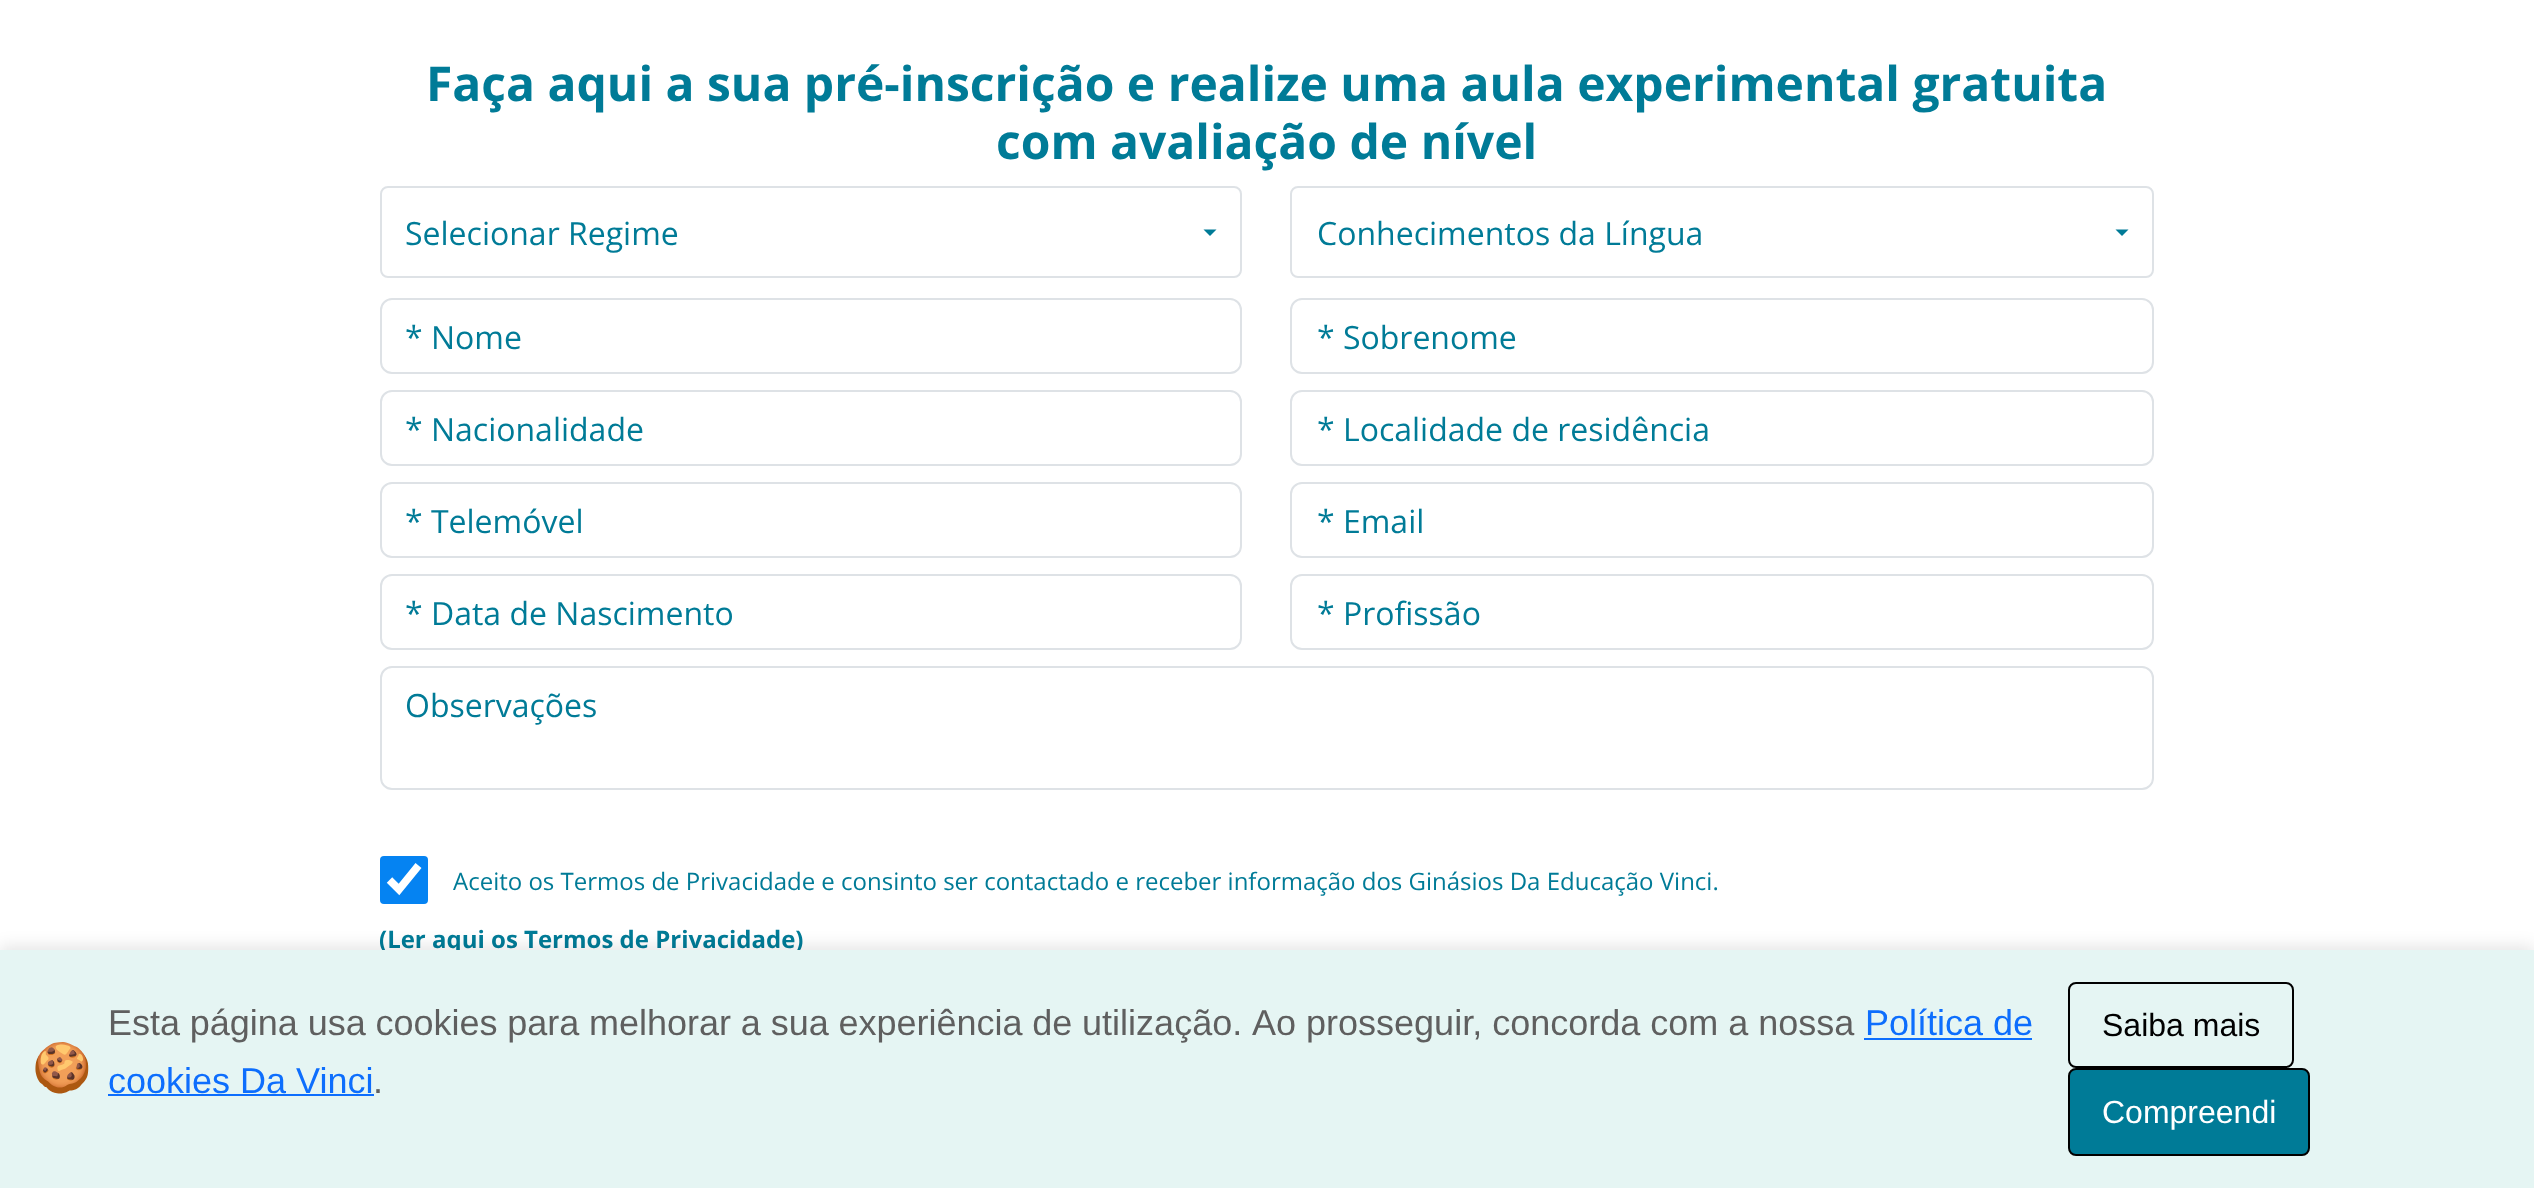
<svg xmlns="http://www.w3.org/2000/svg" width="2534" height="1188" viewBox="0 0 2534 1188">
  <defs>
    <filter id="blur1" x="-50%" y="-200%" width="200%" height="500%"><feGaussianBlur stdDeviation="8"/></filter>
  </defs>
  <rect width="100%" height="100%" fill="#ffffff"/>
  <text x="426" y="101" font-family="Open Sans" font-size="48" font-weight="bold" fill="#007b97">Faça aqui a sua pré-inscrição e realize uma aula experimental gratuita</text>
  <text x="996" y="159" font-family="Open Sans" font-size="48" font-weight="bold" fill="#007b97">com avaliação de nível</text>
  <rect x="381" y="187" width="860" height="90" rx="7" fill="none" stroke="#dee2e6" stroke-width="2"/>
  <text x="405" y="245" font-family="Open Sans" font-size="32" fill="#007b97">Selecionar Regime</text>
  <path d="M1203.5 229.5L1210 236L1216.5 229.5Z" fill="#007b97"/>
  <rect x="1291" y="187" width="862" height="90" rx="7" fill="none" stroke="#dee2e6" stroke-width="2"/>
  <text x="1317" y="245" font-family="Open Sans" font-size="32" fill="#007b97">Conhecimentos da Língua</text>
  <path d="M2115.5 229.5L2122 236L2128.5 229.5Z" fill="#007b97"/>
  <rect x="381" y="299" width="860" height="74" rx="11" fill="none" stroke="#dee2e6" stroke-width="2"/>
  <text x="405" y="349" font-family="Open Sans" font-size="32" fill="#007b97">* Nome</text>
  <rect x="1291" y="299" width="862" height="74" rx="11" fill="none" stroke="#dee2e6" stroke-width="2"/>
  <text x="1317" y="349" font-family="Open Sans" font-size="32" fill="#007b97">* Sobrenome</text>
  <rect x="381" y="391" width="860" height="74" rx="11" fill="none" stroke="#dee2e6" stroke-width="2"/>
  <text x="405" y="441" font-family="Open Sans" font-size="32" fill="#007b97">* Nacionalidade</text>
  <rect x="1291" y="391" width="862" height="74" rx="11" fill="none" stroke="#dee2e6" stroke-width="2"/>
  <text x="1317" y="441" font-family="Open Sans" font-size="32" fill="#007b97">* Localidade de residência</text>
  <rect x="381" y="483" width="860" height="74" rx="11" fill="none" stroke="#dee2e6" stroke-width="2"/>
  <text x="405" y="533" font-family="Open Sans" font-size="32" fill="#007b97">* Telemóvel</text>
  <rect x="1291" y="483" width="862" height="74" rx="11" fill="none" stroke="#dee2e6" stroke-width="2"/>
  <text x="1317" y="533" font-family="Open Sans" font-size="32" fill="#007b97">* Email</text>
  <rect x="381" y="575" width="860" height="74" rx="11" fill="none" stroke="#dee2e6" stroke-width="2"/>
  <text x="405" y="625" font-family="Open Sans" font-size="32" fill="#007b97">* Data de Nascimento</text>
  <rect x="1291" y="575" width="862" height="74" rx="11" fill="none" stroke="#dee2e6" stroke-width="2"/>
  <text x="1317" y="625" font-family="Open Sans" font-size="32" fill="#007b97">* Profissão</text>
  <rect x="381" y="667" width="1772" height="122" rx="11" fill="none" stroke="#dee2e6" stroke-width="2"/>
  <text x="405" y="717" font-family="Open Sans" font-size="32" fill="#007b97">Observações</text>
  <rect x="380" y="856" width="48" height="48" rx="4" fill="#0583f2"/>
  <path d="M389.5 880L399 889.5L418.5 865.5" fill="none" stroke="#ffffff" stroke-width="7.7"/>
  <text x="453" y="890" font-family="Open Sans" font-size="24" fill="#007b97">Aceito os Termos de Privacidade e consinto ser contactado e receber informação dos Ginásios Da Educação Vinci.</text>
  <text x="379" y="948" font-family="Open Sans" font-size="24" font-weight="bold" fill="#007b97">(Ler aqui os Termos de Privacidade)</text>
  <rect x="0" y="946" width="2534" height="238" fill="#000000" fill-opacity="0.1" filter="url(#blur1)"/>
  <rect x="0" y="950" width="2534" height="238" fill="#e5f5f3"/>
  <text x="32" y="1084" font-family="Noto Color Emoji" font-size="48" fill="#5f5f5f">🍪</text>
  <text x="108" y="1035" word-spacing="-0.25" font-family="Liberation Sans" font-size="36" fill="#5f5f5f">Esta página usa cookies para melhorar a sua experiência de utilização.</text>
  <text x="1252" y="1035" font-family="Liberation Sans" font-size="36" fill="#5f5f5f">Ao prosseguir, concorda com a nossa</text>
  <text x="1865" y="1035" font-family="Liberation Sans" font-size="36" fill="#0d6efd">Política de</text>
  <rect x="1864" y="1038" width="168" height="2" fill="#0d6efd"/>
  <text x="108" y="1093" font-family="Liberation Sans" font-size="36" fill="#0d6efd">cookies Da Vinci</text>
  <rect x="108" y="1094" width="266" height="2" fill="#0d6efd"/>
  <text x="373" y="1093" font-family="Liberation Sans" font-size="36" fill="#5f5f5f">.</text>
  <rect x="2069" y="983" width="224" height="84" rx="7" fill="none" stroke="#000000" stroke-width="2"/>
  <text x="2102" y="1036" font-family="Liberation Sans" font-size="32" fill="#000000">Saiba mais</text>
  <rect x="2069" y="1069" width="240" height="86" rx="7" fill="#007b97" stroke="#000000" stroke-width="2"/>
  <text x="2102" y="1123" font-family="Liberation Sans" font-size="32" fill="#ffffff">Compreendi</text>
</svg>
